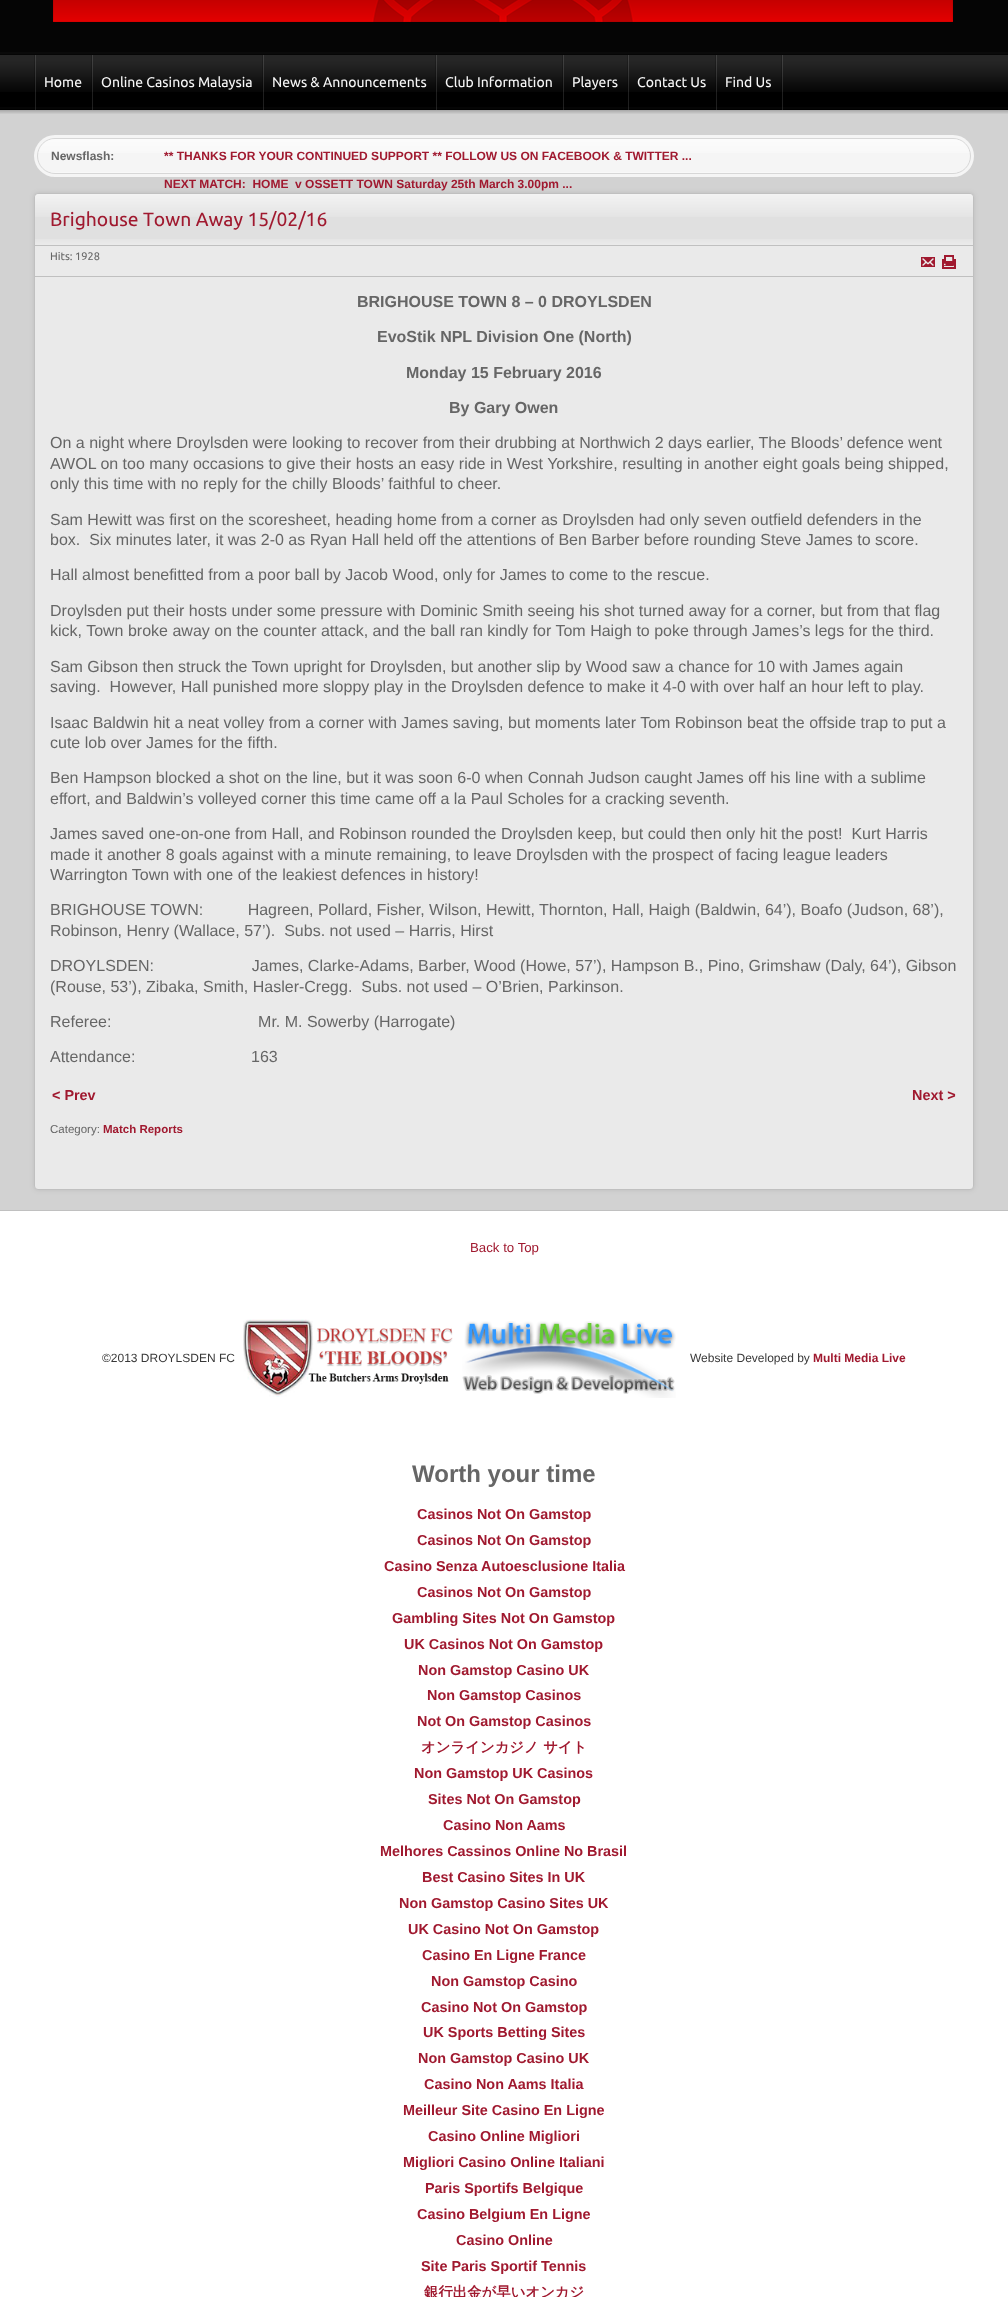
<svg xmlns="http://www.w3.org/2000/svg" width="1008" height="2297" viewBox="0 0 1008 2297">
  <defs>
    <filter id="blur1" x="-50%" y="-200%" width="200%" height="500%"><feGaussianBlur stdDeviation="2.5"/></filter>
  </defs>
  <rect width="100%" height="100%" fill="#ffffff"/>
  <rect x="0" y="55" width="1008" height="55" fill="#000000"/>
  <rect x="0" y="0" width="1008" height="55" fill="#050505"/>
  <rect x="0" y="52" width="1008" height="2" fill="#0a0a0a"/>
  <image x="53" y="0" width="900" height="22" href="img1.png"/>
  <image x="0" y="55" width="1008" height="37" href="img2.png"/>
  <rect x="0" y="107" width="1008" height="2" fill="#050505"/>
  <image x="34" y="55" width="2" height="55" href="img3.png"/>
  <image x="91" y="55" width="2" height="55" href="img3.png"/>
  <text x="44" y="87" font-family="Ubuntu" font-size="14" fill="#f6f6f6">Home</text>
  <image x="262" y="55" width="2" height="55" href="img3.png"/>
  <text x="101" y="87" font-family="Ubuntu" font-size="14" fill="#f6f6f6">Online Casinos Malaysia</text>
  <image x="435" y="55" width="2" height="55" href="img3.png"/>
  <text x="272" y="87" font-family="Ubuntu" font-size="14" fill="#f6f6f6">News &amp; Announcements</text>
  <image x="562" y="55" width="2" height="55" href="img3.png"/>
  <text x="445" y="87" font-family="Ubuntu" font-size="14" fill="#f6f6f6">Club Information</text>
  <image x="627" y="55" width="2" height="55" href="img3.png"/>
  <text x="572" y="87" font-family="Ubuntu" font-size="14" fill="#f6f6f6">Players</text>
  <image x="715" y="55" width="2" height="55" href="img3.png"/>
  <text x="637" y="87" font-family="Ubuntu" font-size="14" fill="#f6f6f6">Contact Us</text>
  <image x="781" y="55" width="2" height="55" href="img3.png"/>
  <text x="725" y="87" font-family="Ubuntu" font-size="14" fill="#f6f6f6">Find Us</text>
  <rect x="0" y="110" width="1008" height="1100" fill="#d2d2d2"/>
  <image x="0" y="110" width="1008" height="4" href="img4.png"/>
  <rect x="0" y="1210" width="1008" height="1" fill="#c0c0c0"/>
  <rect x="34" y="135" width="940" height="42" rx="21" fill="#f5f5f5"/>
  <rect x="37.5" y="138.5" width="933" height="35" rx="17.5" fill="none" stroke="#d7d7d7"/>
  <image x="38" y="139" width="932" height="14" href="img5.png"/>
  <image x="51" y="172" width="906" height="1" href="img6.png"/>
  <text x="51" y="160" font-family="Liberation Sans" font-size="12" font-weight="bold" fill="#666666">Newsflash:</text>
  <text x="164" y="160" font-family="Liberation Sans" font-size="12" font-weight="bold" fill="#a0192f">** THANKS FOR YOUR CONTINUED SUPPORT ** FOLLOW US ON FACEBOOK &amp; TWITTER ...</text>
  <text x="164" y="188" font-family="Liberation Sans" font-size="12" font-weight="bold" fill="#a0192f" xml:space="preserve">NEXT MATCH:  HOME  v OSSETT TOWN Saturday 25th March 3.00pm ...</text>
  <rect x="34" y="193" width="940" height="997" rx="4" fill="#333333" fill-opacity="0.1" filter="url(#blur1)"/>
  <rect x="34.5" y="193.5" width="939" height="996" rx="3.5" fill="#eaeaea" stroke="#c0c0c0"/>
  <path d="M39 194H969C971 194 973 196 973 198V246H35V198C35 196 37 194 39 194Z" fill="#e0e0e0"/>
  <rect x="35" y="245" width="938" height="1" fill="#c0c0c0"/>
  <image x="35" y="194" width="938" height="23" href="img7.png"/>
  <image x="35" y="239" width="938" height="6" href="img8.png"/>
  <text x="50" y="226" font-family="Ubuntu" font-size="19.25" fill="#a0192f">Brighouse Town Away 15/02/16</text>
  <rect x="35" y="276" width="938" height="1" fill="#c0c0c0"/>
  <text x="50" y="260" font-family="Ubuntu" font-size="11" fill="#666666">Hits: 1928</text>
  <rect x="921" y="257" width="14" height="10" fill="#a0192f"/>
  <image x="919" y="253" width="18" height="18" href="img9.png"/>
  <rect x="942" y="255" width="14" height="14" fill="#a0192f"/>
  <image x="940" y="253" width="18" height="18" href="img10.png"/>
  <text x="357" y="307" font-family="Liberation Sans" font-size="16" font-weight="bold" fill="#666666">BRIGHOUSE TOWN 8 – 0 DROYLSDEN</text>
  <text x="377" y="342" font-family="Liberation Sans" font-size="16" font-weight="bold" fill="#666666">EvoStik NPL Division One (North)</text>
  <text x="406" y="378" font-family="Liberation Sans" font-size="16" font-weight="bold" fill="#666666">Monday 15 February 2016</text>
  <text x="449" y="413" font-family="Liberation Sans" font-size="16" font-weight="bold" fill="#666666">By Gary Owen</text>
  <text x="50" y="448" font-family="Liberation Sans" font-size="16" fill="#666666">On a night where Droylsden were looking to recover from their drubbing at Northwich 2 days earlier, The Bloods’ defence went</text>
  <text x="50" y="469" font-family="Liberation Sans" font-size="16" fill="#666666">AWOL on too many occasions to give their hosts an easy ride in West Yorkshire, resulting in another eight goals being shipped,</text>
  <text x="50" y="489" font-family="Liberation Sans" font-size="16" fill="#666666">only this time with no reply for the chilly Bloods’ faithful to cheer.</text>
  <text x="50" y="525" font-family="Liberation Sans" font-size="16" fill="#666666">Sam Hewitt was first on the scoresheet, heading home from a corner as Droylsden had only seven outfield defenders in the</text>
  <text x="50" y="545" font-family="Liberation Sans" font-size="16" fill="#666666" xml:space="preserve">box.  Six minutes later, it was 2-0 as Ryan Hall held off the attentions of Ben Barber before rounding Steve James to score.</text>
  <text x="50" y="580" font-family="Liberation Sans" font-size="16" fill="#666666">Hall almost benefitted from a poor ball by Jacob Wood, only for James to come to the rescue.</text>
  <text x="50" y="616" font-family="Liberation Sans" font-size="16" fill="#666666">Droylsden put their hosts under some pressure with Dominic Smith seeing his shot turned away for a corner, but from that flag</text>
  <text x="50" y="636" font-family="Liberation Sans" font-size="16" fill="#666666">kick, Town broke away on the counter attack, and the ball ran kindly for Tom Haigh to poke through James’s legs for the third.</text>
  <text x="50" y="672" font-family="Liberation Sans" font-size="16" fill="#666666">Sam Gibson then struck the Town upright for Droylsden, but another slip by Wood saw a chance for 10 with James again</text>
  <text x="50" y="692" font-family="Liberation Sans" font-size="16" fill="#666666" xml:space="preserve">saving.  However, Hall punished more sloppy play in the Droylsden defence to make it 4-0 with over half an hour left to play.</text>
  <text x="50" y="728" font-family="Liberation Sans" font-size="16" fill="#666666">Isaac Baldwin hit a neat volley from a corner with James saving, but moments later Tom Robinson beat the offside trap to put a</text>
  <text x="50" y="748" font-family="Liberation Sans" font-size="16" fill="#666666">cute lob over James for the fifth.</text>
  <text x="50" y="783" font-family="Liberation Sans" font-size="16" fill="#666666">Ben Hampson blocked a shot on the line, but it was soon 6-0 when Connah Judson caught James off his line with a sublime</text>
  <text x="50" y="804" font-family="Liberation Sans" font-size="16" fill="#666666">effort, and Baldwin’s volleyed corner this time came off a la Paul Scholes for a cracking seventh.</text>
  <text x="50" y="839" font-family="Liberation Sans" font-size="16" fill="#666666" xml:space="preserve">James saved one-on-one from Hall, and Robinson rounded the Droylsden keep, but could then only hit the post!  Kurt Harris</text>
  <text x="50" y="860" font-family="Liberation Sans" font-size="16" fill="#666666">made it another 8 goals against with a minute remaining, to leave Droylsden with the prospect of facing league leaders</text>
  <text x="50" y="880" font-family="Liberation Sans" font-size="16" fill="#666666">Warrington Town with one of the leakiest defences in history!</text>
  <text x="50" y="915" font-family="Liberation Sans" font-size="16" fill="#666666" xml:space="preserve">BRIGHOUSE TOWN:          Hagreen, Pollard, Fisher, Wilson, Hewitt, Thornton, Hall, Haigh (Baldwin, 64’), Boafo (Judson, 68’),</text>
  <text x="50" y="936" font-family="Liberation Sans" font-size="16" fill="#666666" xml:space="preserve">Robinson, Henry (Wallace, 57’).  Subs. not used – Harris, Hirst</text>
  <text x="50" y="971" font-family="Liberation Sans" font-size="16" fill="#666666" xml:space="preserve">DROYLSDEN:                      James, Clarke-Adams, Barber, Wood (Howe, 57’), Hampson B., Pino, Grimshaw (Daly, 64’), Gibson</text>
  <text x="50" y="992" font-family="Liberation Sans" font-size="16" fill="#666666" xml:space="preserve">(Rouse, 53’), Zibaka, Smith, Hasler-Cregg.  Subs. not used – O’Brien, Parkinson.</text>
  <text x="50" y="1027" font-family="Liberation Sans" font-size="16" fill="#666666" xml:space="preserve">Referee:                                 Mr. M. Sowerby (Harrogate)</text>
  <text x="50" y="1062" font-family="Liberation Sans" font-size="16" fill="#666666" xml:space="preserve">Attendance:                          163</text>
  <text x="52" y="1100" font-family="Liberation Sans" font-size="14.4" font-weight="bold" fill="#a0192f">&lt; Prev</text>
  <text x="912" y="1100" font-family="Liberation Sans" font-size="14.4" font-weight="bold" fill="#a0192f">Next &gt;</text>
  <text x="50" y="1133" font-family="Liberation Sans" font-size="11.5" fill="#666666">Category:</text>
  <text x="103" y="1133" font-family="Liberation Sans" font-size="11.5" font-weight="bold" fill="#a0192f">Match Reports</text>
  <text x="470" y="1252" font-family="Liberation Sans" font-size="13.25" fill="#a0192f">Back to Top</text>
  <text x="102" y="1362" font-family="Liberation Sans" font-size="12" fill="#383838">©2013 DROYLSDEN FC</text>
  <image x="243" y="1319" width="210" height="78" href="img11.png"/>
  <image x="462" y="1321" width="214" height="77" href="img12.png"/>
  <text x="690" y="1362" font-family="Liberation Sans" font-size="12" fill="#383838">Website Developed by</text>
  <text x="813" y="1362" font-family="Liberation Sans" font-size="12" font-weight="bold" fill="#a0192f">Multi Media Live</text>
  <text x="412" y="1482" font-family="Liberation Sans" font-size="24" font-weight="bold" fill="#666666">Worth your time</text>
  <text x="417" y="1519" font-family="Liberation Sans" font-size="14.4" font-weight="bold" fill="#a0192f">Casinos Not On Gamstop</text>
  <text x="417" y="1545" font-family="Liberation Sans" font-size="14.4" font-weight="bold" fill="#a0192f">Casinos Not On Gamstop</text>
  <text x="384" y="1571" font-family="Liberation Sans" font-size="14.4" font-weight="bold" fill="#a0192f">Casino Senza Autoesclusione Italia</text>
  <text x="417" y="1597" font-family="Liberation Sans" font-size="14.4" font-weight="bold" fill="#a0192f">Casinos Not On Gamstop</text>
  <text x="392" y="1623" font-family="Liberation Sans" font-size="14.4" font-weight="bold" fill="#a0192f">Gambling Sites Not On Gamstop</text>
  <text x="404" y="1649" font-family="Liberation Sans" font-size="14.4" font-weight="bold" fill="#a0192f">UK Casinos Not On Gamstop</text>
  <text x="418" y="1675" font-family="Liberation Sans" font-size="14.4" font-weight="bold" fill="#a0192f">Non Gamstop Casino UK</text>
  <text x="427" y="1700" font-family="Liberation Sans" font-size="14.4" font-weight="bold" fill="#a0192f">Non Gamstop Casinos</text>
  <text x="417" y="1726" font-family="Liberation Sans" font-size="14.4" font-weight="bold" fill="#a0192f">Not On Gamstop Casinos</text>
  <text x="421" y="1752" font-family="WenQuanYi Zen Hei" font-size="14.4" font-weight="bold" fill="#a0192f">オンラインカジノ サイト</text>
  <text x="414" y="1778" font-family="Liberation Sans" font-size="14.4" font-weight="bold" fill="#a0192f">Non Gamstop UK Casinos</text>
  <text x="428" y="1804" font-family="Liberation Sans" font-size="14.4" font-weight="bold" fill="#a0192f">Sites Not On Gamstop</text>
  <text x="443" y="1830" font-family="Liberation Sans" font-size="14.4" font-weight="bold" fill="#a0192f">Casino Non Aams</text>
  <text x="380" y="1856" font-family="Liberation Sans" font-size="14.4" font-weight="bold" fill="#a0192f">Melhores Cassinos Online No Brasil</text>
  <text x="422" y="1882" font-family="Liberation Sans" font-size="14.4" font-weight="bold" fill="#a0192f">Best Casino Sites In UK</text>
  <text x="399" y="1908" font-family="Liberation Sans" font-size="14.4" font-weight="bold" fill="#a0192f">Non Gamstop Casino Sites UK</text>
  <text x="408" y="1934" font-family="Liberation Sans" font-size="14.4" font-weight="bold" fill="#a0192f">UK Casino Not On Gamstop</text>
  <text x="422" y="1960" font-family="Liberation Sans" font-size="14.4" font-weight="bold" fill="#a0192f">Casino En Ligne France</text>
  <text x="431" y="1986" font-family="Liberation Sans" font-size="14.4" font-weight="bold" fill="#a0192f">Non Gamstop Casino</text>
  <text x="421" y="2012" font-family="Liberation Sans" font-size="14.4" font-weight="bold" fill="#a0192f">Casino Not On Gamstop</text>
  <text x="423" y="2037" font-family="Liberation Sans" font-size="14.4" font-weight="bold" fill="#a0192f">UK Sports Betting Sites</text>
  <text x="418" y="2063" font-family="Liberation Sans" font-size="14.4" font-weight="bold" fill="#a0192f">Non Gamstop Casino UK</text>
  <text x="424" y="2089" font-family="Liberation Sans" font-size="14.4" font-weight="bold" fill="#a0192f">Casino Non Aams Italia</text>
  <text x="403" y="2115" font-family="Liberation Sans" font-size="14.4" font-weight="bold" fill="#a0192f">Meilleur Site Casino En Ligne</text>
  <text x="428" y="2141" font-family="Liberation Sans" font-size="14.4" font-weight="bold" fill="#a0192f">Casino Online Migliori</text>
  <text x="403" y="2167" font-family="Liberation Sans" font-size="14.4" font-weight="bold" fill="#a0192f">Migliori Casino Online Italiani</text>
  <text x="425" y="2193" font-family="Liberation Sans" font-size="14.4" font-weight="bold" fill="#a0192f">Paris Sportifs Belgique</text>
  <text x="417" y="2219" font-family="Liberation Sans" font-size="14.4" font-weight="bold" fill="#a0192f">Casino Belgium En Ligne</text>
  <text x="456" y="2245" font-family="Liberation Sans" font-size="14.4" font-weight="bold" fill="#a0192f">Casino Online</text>
  <text x="421" y="2271" font-family="Liberation Sans" font-size="14.4" font-weight="bold" fill="#a0192f">Site Paris Sportif Tennis</text>
  <text x="424" y="2297" font-family="WenQuanYi Zen Hei" font-size="14.4" font-weight="bold" fill="#a0192f">銀行出金が早いオンカジ</text>
</svg>
